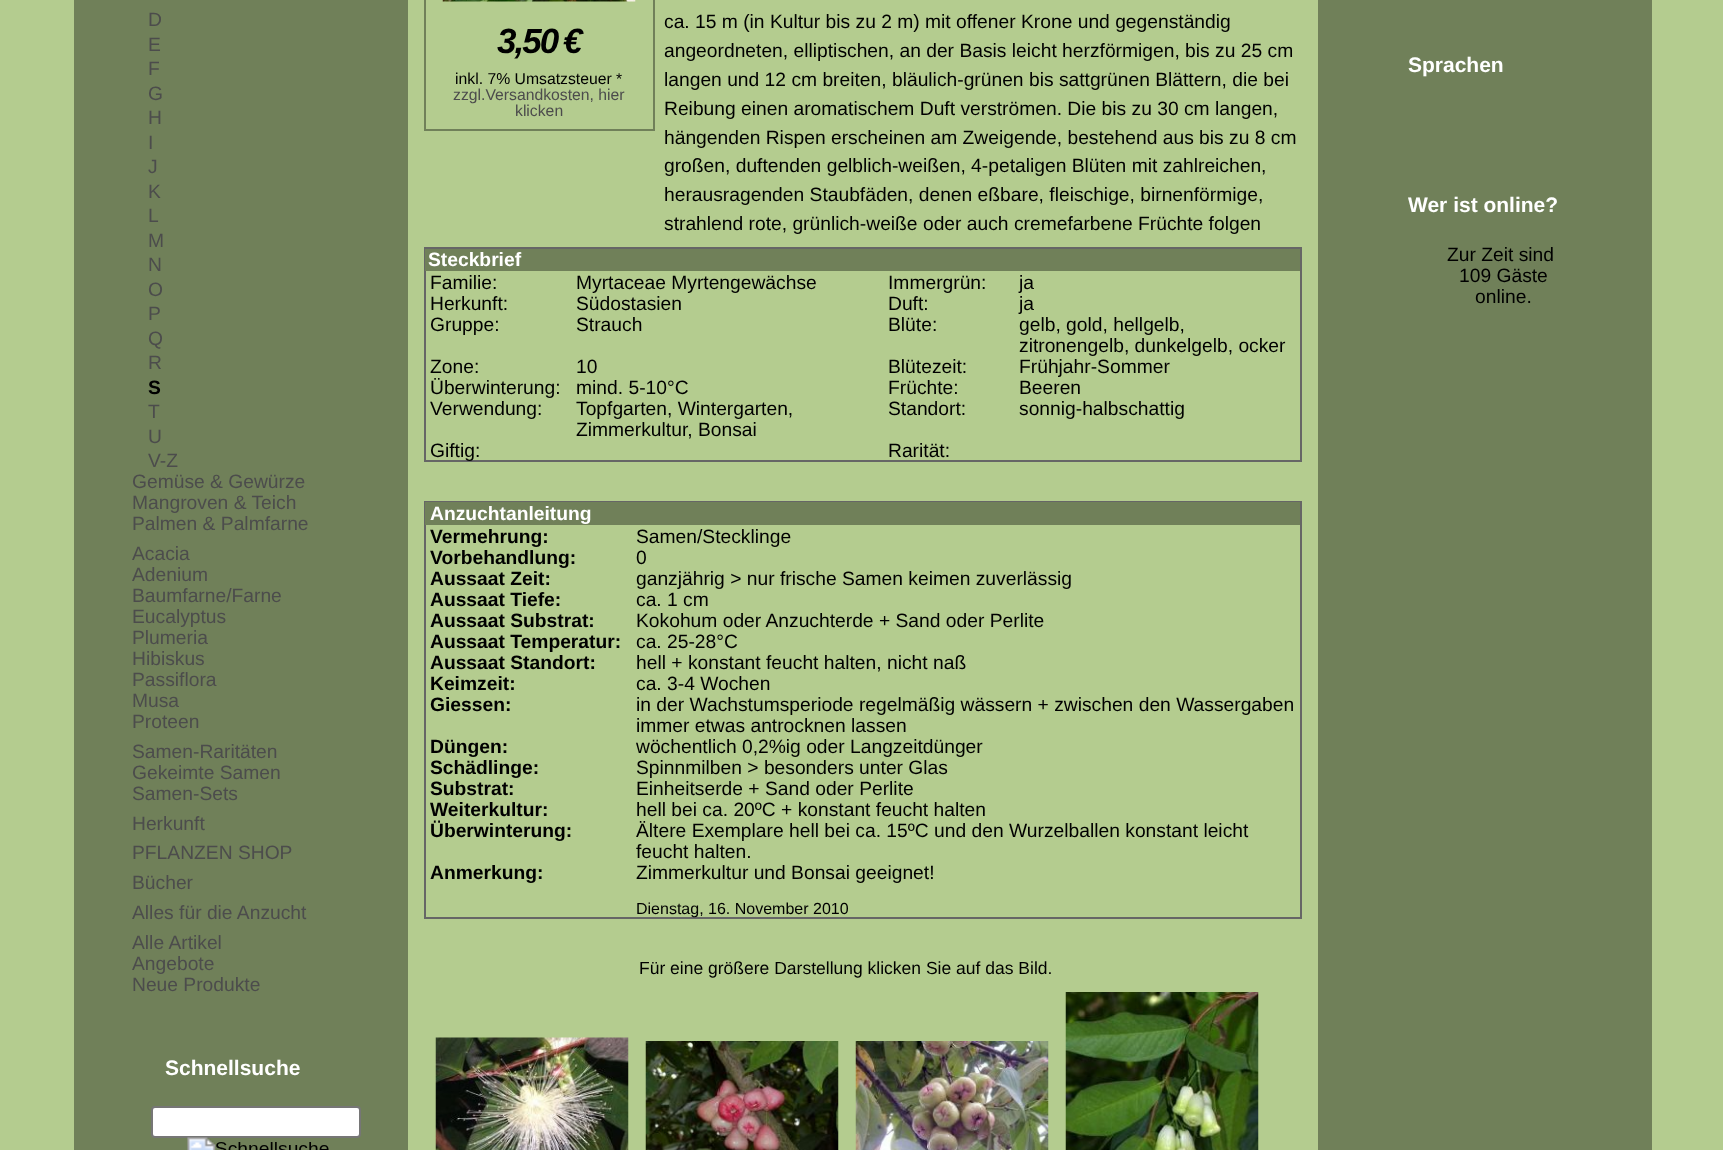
<svg xmlns="http://www.w3.org/2000/svg" width="1723" height="1150" viewBox="0 0 1723 1150">
  <rect width="100%" height="100%" fill="#b4cc8f"/>
  <rect x="75" y="-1" width="1576" height="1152" fill="none" stroke="#708059" stroke-width="2"/>
  <rect x="76" y="0" width="332" height="1150" fill="#708059"/>
  <text x="148" y="26" font-family="Liberation Sans" font-size="19.25" fill="#4c4c4c">D</text>
  <text x="148" y="51" font-family="Liberation Sans" font-size="19.25" fill="#4c4c4c">E</text>
  <text x="148" y="75" font-family="Liberation Sans" font-size="19.25" fill="#4c4c4c">F</text>
  <text x="148" y="100" font-family="Liberation Sans" font-size="19.25" fill="#4c4c4c">G</text>
  <text x="148" y="124" font-family="Liberation Sans" font-size="19.25" fill="#4c4c4c">H</text>
  <text x="148" y="149" font-family="Liberation Sans" font-size="19.25" fill="#4c4c4c">I</text>
  <text x="148" y="173" font-family="Liberation Sans" font-size="19.25" fill="#4c4c4c">J</text>
  <text x="148" y="198" font-family="Liberation Sans" font-size="19.25" fill="#4c4c4c">K</text>
  <text x="148" y="222" font-family="Liberation Sans" font-size="19.25" fill="#4c4c4c">L</text>
  <text x="148" y="247" font-family="Liberation Sans" font-size="19.25" fill="#4c4c4c">M</text>
  <text x="148" y="271" font-family="Liberation Sans" font-size="19.25" fill="#4c4c4c">N</text>
  <text x="148" y="296" font-family="Liberation Sans" font-size="19.25" fill="#4c4c4c">O</text>
  <text x="148" y="320" font-family="Liberation Sans" font-size="19.25" fill="#4c4c4c">P</text>
  <text x="148" y="345" font-family="Liberation Sans" font-size="19.25" fill="#4c4c4c">Q</text>
  <text x="148" y="369" font-family="Liberation Sans" font-size="19.25" fill="#4c4c4c">R</text>
  <text x="148" y="394" font-family="Liberation Sans" font-size="19.25" font-weight="bold" fill="#000000">S</text>
  <text x="148" y="418" font-family="Liberation Sans" font-size="19.25" fill="#4c4c4c">T</text>
  <text x="148" y="443" font-family="Liberation Sans" font-size="19.25" fill="#4c4c4c">U</text>
  <text x="148" y="467" font-family="Liberation Sans" font-size="19.25" fill="#4c4c4c">V-Z</text>
  <text x="132" y="488" font-family="Liberation Sans" font-size="19.25" fill="#4c4c4c">Gemüse &amp; Gewürze</text>
  <text x="132" y="509" font-family="Liberation Sans" font-size="19.25" fill="#4c4c4c">Mangroven &amp; Teich</text>
  <text x="132" y="530" font-family="Liberation Sans" font-size="19.25" fill="#4c4c4c">Palmen &amp; Palmfarne</text>
  <text x="132" y="560" font-family="Liberation Sans" font-size="19.25" fill="#4c4c4c">Acacia</text>
  <text x="132" y="581" font-family="Liberation Sans" font-size="19.25" fill="#4c4c4c">Adenium</text>
  <text x="132" y="602" font-family="Liberation Sans" font-size="19.25" fill="#4c4c4c">Baumfarne/Farne</text>
  <text x="132" y="623" font-family="Liberation Sans" font-size="19.25" fill="#4c4c4c">Eucalyptus</text>
  <text x="132" y="644" font-family="Liberation Sans" font-size="19.25" fill="#4c4c4c">Plumeria</text>
  <text x="132" y="665" font-family="Liberation Sans" font-size="19.25" fill="#4c4c4c">Hibiskus</text>
  <text x="132" y="686" font-family="Liberation Sans" font-size="19.25" fill="#4c4c4c">Passiflora</text>
  <text x="132" y="707" font-family="Liberation Sans" font-size="19.25" fill="#4c4c4c">Musa</text>
  <text x="132" y="728" font-family="Liberation Sans" font-size="19.25" fill="#4c4c4c">Proteen</text>
  <text x="132" y="758" font-family="Liberation Sans" font-size="19.25" fill="#4c4c4c">Samen-Raritäten</text>
  <text x="132" y="779" font-family="Liberation Sans" font-size="19.25" fill="#4c4c4c">Gekeimte Samen</text>
  <text x="132" y="800" font-family="Liberation Sans" font-size="19.25" fill="#4c4c4c">Samen-Sets</text>
  <text x="132" y="830" font-family="Liberation Sans" font-size="19.25" fill="#4c4c4c">Herkunft</text>
  <text x="132" y="859" font-family="Liberation Sans" font-size="19.25" fill="#4c4c4c">PFLANZEN SHOP</text>
  <text x="132" y="889" font-family="Liberation Sans" font-size="19.25" fill="#4c4c4c">Bücher</text>
  <text x="132" y="919" font-family="Liberation Sans" font-size="19.25" fill="#4c4c4c">Alles für die Anzucht</text>
  <text x="132" y="949" font-family="Liberation Sans" font-size="19.25" fill="#4c4c4c">Alle Artikel</text>
  <text x="132" y="970" font-family="Liberation Sans" font-size="19.25" fill="#4c4c4c">Angebote</text>
  <text x="132" y="991" font-family="Liberation Sans" font-size="19.25" fill="#4c4c4c">Neue Produkte</text>
  <text x="165" y="1075" font-family="Liberation Sans" font-size="21" font-weight="bold" fill="#ffffff">Schnellsuche</text>
  <rect x="152" y="1107" width="208" height="30" rx="3" fill="#ffffff" stroke="#767676" stroke-width="2"/>
  <image x="187" y="1137" width="142" height="13" href="img1.png"/>
  <rect x="425" y="-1" width="229" height="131" fill="none" stroke="#708059" stroke-width="2"/>
  <image x="442" y="0" width="194" height="2" href="img2.png"/>
  <text x="497" y="53" font-family="Liberation Sans" font-size="35" font-weight="bold" font-style="italic" letter-spacing="-2" fill="#000000">3,50</text>
  <text x="563" y="53" font-family="Liberation Sans" font-size="35" font-weight="bold" font-style="italic" letter-spacing="-2" fill="#000000">€</text>
  <text x="455" y="84" font-family="Liberation Sans" font-size="15.75" fill="#000000">inkl. 7% Umsatzsteuer *</text>
  <text x="453" y="100" font-family="Liberation Sans" font-size="15.75" fill="#4c4c4c">zzgl.Versandkosten, hier</text>
  <text x="515" y="116" font-family="Liberation Sans" font-size="15.75" fill="#4c4c4c">klicken</text>
  <text x="664" y="28" font-family="Liberation Sans" font-size="19.25" fill="#000000">ca. 15 m (in Kultur bis zu 2 m) mit offener Krone und gegenständig</text>
  <text x="664" y="57" font-family="Liberation Sans" font-size="19.25" fill="#000000">angeordneten, elliptischen, an der Basis leicht herzförmigen, bis zu 25 cm</text>
  <text x="664" y="86" font-family="Liberation Sans" font-size="19.25" fill="#000000">langen und 12 cm breiten, bläulich-grünen bis sattgrünen Blättern, die bei</text>
  <text x="664" y="115" font-family="Liberation Sans" font-size="19.25" fill="#000000">Reibung einen aromatischem Duft verströmen. Die bis zu 30 cm langen,</text>
  <text x="664" y="144" font-family="Liberation Sans" font-size="19.25" fill="#000000">hängenden Rispen erscheinen am Zweigende, bestehend aus bis zu 8 cm</text>
  <text x="664" y="172" font-family="Liberation Sans" font-size="19.25" fill="#000000">großen, duftenden gelblich-weißen, 4-petaligen Blüten mit zahlreichen,</text>
  <text x="664" y="201" font-family="Liberation Sans" font-size="19.25" fill="#000000">herausragenden Staubfäden, denen eßbare, fleischige, birnenförmige,</text>
  <text x="664" y="230" font-family="Liberation Sans" font-size="19.25" fill="#000000">strahlend rote, grünlich-weiße oder auch cremefarbene Früchte folgen</text>
  <rect x="425" y="248" width="876" height="213" fill="none" stroke="#666666" stroke-width="2"/>
  <rect x="425" y="249" width="875" height="22" fill="#708059"/>
  <text x="428" y="266" font-family="Liberation Sans" font-size="19.25" font-weight="bold" fill="#ffffff">Steckbrief</text>
  <text x="430" y="289" font-family="Liberation Sans" font-size="19.25" fill="#000000">Familie:</text>
  <text x="576" y="289" font-family="Liberation Sans" font-size="19.25" fill="#000000">Myrtaceae Myrtengewächse</text>
  <text x="888" y="289" font-family="Liberation Sans" font-size="19.25" fill="#000000">Immergrün:</text>
  <text x="1019" y="289" font-family="Liberation Sans" font-size="19.25" fill="#000000">ja</text>
  <text x="430" y="310" font-family="Liberation Sans" font-size="19.25" fill="#000000">Herkunft:</text>
  <text x="576" y="310" font-family="Liberation Sans" font-size="19.25" fill="#000000">Südostasien</text>
  <text x="888" y="310" font-family="Liberation Sans" font-size="19.25" fill="#000000">Duft:</text>
  <text x="1019" y="310" font-family="Liberation Sans" font-size="19.25" fill="#000000">ja</text>
  <text x="430" y="331" font-family="Liberation Sans" font-size="19.25" fill="#000000">Gruppe:</text>
  <text x="576" y="331" font-family="Liberation Sans" font-size="19.25" fill="#000000">Strauch</text>
  <text x="888" y="331" font-family="Liberation Sans" font-size="19.25" fill="#000000">Blüte:</text>
  <text x="1019" y="331" font-family="Liberation Sans" font-size="19.25" fill="#000000">gelb, gold, hellgelb,</text>
  <text x="1019" y="352" font-family="Liberation Sans" font-size="19.25" fill="#000000">zitronengelb, dunkelgelb, ocker</text>
  <text x="430" y="373" font-family="Liberation Sans" font-size="19.25" fill="#000000">Zone:</text>
  <text x="576" y="373" font-family="Liberation Sans" font-size="19.25" fill="#000000">10</text>
  <text x="888" y="373" font-family="Liberation Sans" font-size="19.25" fill="#000000">Blütezeit:</text>
  <text x="1019" y="373" font-family="Liberation Sans" font-size="19.25" fill="#000000">Frühjahr-Sommer</text>
  <text x="430" y="394" font-family="Liberation Sans" font-size="19.25" fill="#000000">Überwinterung:</text>
  <text x="576" y="394" font-family="Liberation Sans" font-size="19.25" fill="#000000">mind. 5-10°C</text>
  <text x="888" y="394" font-family="Liberation Sans" font-size="19.25" fill="#000000">Früchte:</text>
  <text x="1019" y="394" font-family="Liberation Sans" font-size="19.25" fill="#000000">Beeren</text>
  <text x="430" y="415" font-family="Liberation Sans" font-size="19.25" fill="#000000">Verwendung:</text>
  <text x="576" y="415" font-family="Liberation Sans" font-size="19.25" fill="#000000">Topfgarten, Wintergarten,</text>
  <text x="576" y="436" font-family="Liberation Sans" font-size="19.25" fill="#000000">Zimmerkultur, Bonsai</text>
  <text x="888" y="415" font-family="Liberation Sans" font-size="19.25" fill="#000000">Standort:</text>
  <text x="1019" y="415" font-family="Liberation Sans" font-size="19.25" fill="#000000">sonnig-halbschattig</text>
  <text x="430" y="457" font-family="Liberation Sans" font-size="19.25" fill="#000000">Giftig:</text>
  <text x="888" y="457" font-family="Liberation Sans" font-size="19.25" fill="#000000">Rarität:</text>
  <rect x="425" y="502" width="876" height="416" fill="none" stroke="#666666" stroke-width="2"/>
  <rect x="425" y="502" width="875" height="23" fill="#708059"/>
  <text x="430" y="520" font-family="Liberation Sans" font-size="19.25" font-weight="bold" fill="#ffffff">Anzuchtanleitung</text>
  <text x="430" y="543" font-family="Liberation Sans" font-size="19.25" font-weight="bold" fill="#000000">Vermehrung:</text>
  <text x="636" y="543" font-family="Liberation Sans" font-size="19.25" fill="#000000">Samen/Stecklinge</text>
  <text x="430" y="564" font-family="Liberation Sans" font-size="19.25" font-weight="bold" fill="#000000">Vorbehandlung:</text>
  <text x="636" y="564" font-family="Liberation Sans" font-size="19.25" fill="#000000">0</text>
  <text x="430" y="585" font-family="Liberation Sans" font-size="19.25" font-weight="bold" fill="#000000">Aussaat Zeit:</text>
  <text x="636" y="585" font-family="Liberation Sans" font-size="19.25" fill="#000000">ganzjährig &gt; nur frische Samen keimen zuverlässig</text>
  <text x="430" y="606" font-family="Liberation Sans" font-size="19.25" font-weight="bold" fill="#000000">Aussaat Tiefe:</text>
  <text x="636" y="606" font-family="Liberation Sans" font-size="19.25" fill="#000000">ca. 1 cm</text>
  <text x="430" y="627" font-family="Liberation Sans" font-size="19.25" font-weight="bold" fill="#000000">Aussaat Substrat:</text>
  <text x="636" y="627" font-family="Liberation Sans" font-size="19.25" fill="#000000">Kokohum oder Anzuchterde + Sand oder Perlite</text>
  <text x="430" y="648" font-family="Liberation Sans" font-size="19.25" font-weight="bold" fill="#000000">Aussaat Temperatur:</text>
  <text x="636" y="648" font-family="Liberation Sans" font-size="19.25" fill="#000000">ca. 25-28°C</text>
  <text x="430" y="669" font-family="Liberation Sans" font-size="19.25" font-weight="bold" fill="#000000">Aussaat Standort:</text>
  <text x="636" y="669" font-family="Liberation Sans" font-size="19.25" fill="#000000">hell + konstant feucht halten, nicht naß</text>
  <text x="430" y="690" font-family="Liberation Sans" font-size="19.25" font-weight="bold" fill="#000000">Keimzeit:</text>
  <text x="636" y="690" font-family="Liberation Sans" font-size="19.25" fill="#000000">ca. 3-4 Wochen</text>
  <text x="430" y="711" font-family="Liberation Sans" font-size="19.25" font-weight="bold" fill="#000000">Giessen:</text>
  <text x="636" y="711" font-family="Liberation Sans" font-size="19.25" fill="#000000">in der Wachstumsperiode regelmäßig wässern + zwischen den Wassergaben</text>
  <text x="636" y="732" font-family="Liberation Sans" font-size="19.25" fill="#000000">immer etwas antrocknen lassen</text>
  <text x="430" y="753" font-family="Liberation Sans" font-size="19.25" font-weight="bold" fill="#000000">Düngen:</text>
  <text x="636" y="753" font-family="Liberation Sans" font-size="19.25" fill="#000000">wöchentlich 0,2%ig oder Langzeitdünger</text>
  <text x="430" y="774" font-family="Liberation Sans" font-size="19.25" font-weight="bold" fill="#000000">Schädlinge:</text>
  <text x="636" y="774" font-family="Liberation Sans" font-size="19.25" fill="#000000">Spinnmilben &gt; besonders unter Glas</text>
  <text x="430" y="795" font-family="Liberation Sans" font-size="19.25" font-weight="bold" fill="#000000">Substrat:</text>
  <text x="636" y="795" font-family="Liberation Sans" font-size="19.25" fill="#000000">Einheitserde + Sand oder Perlite</text>
  <text x="430" y="816" font-family="Liberation Sans" font-size="19.25" font-weight="bold" fill="#000000">Weiterkultur:</text>
  <text x="636" y="816" font-family="Liberation Sans" font-size="19.25" fill="#000000">hell bei ca. 20ºC + konstant feucht halten</text>
  <text x="430" y="837" font-family="Liberation Sans" font-size="19.25" font-weight="bold" fill="#000000">Überwinterung:</text>
  <text x="636" y="837" font-family="Liberation Sans" font-size="19.25" fill="#000000">Ältere Exemplare hell bei ca. 15ºC und den Wurzelballen konstant leicht</text>
  <text x="636" y="858" font-family="Liberation Sans" font-size="19.25" fill="#000000">feucht halten.</text>
  <text x="430" y="879" font-family="Liberation Sans" font-size="19.25" font-weight="bold" fill="#000000">Anmerkung:</text>
  <text x="636" y="879" font-family="Liberation Sans" font-size="19.25" fill="#000000">Zimmerkultur und Bonsai geeignet!</text>
  <text x="636" y="914" font-family="Liberation Sans" font-size="16" fill="#000000">Dienstag, 16. November 2010</text>
  <text x="639" y="974" font-family="Liberation Sans" font-size="17.5" fill="#000000">Für eine größere Darstellung klicken Sie auf das Bild.</text>
  <image x="435" y="1037" width="194" height="113" href="img3.png"/>
  <image x="645" y="1041" width="194" height="109" href="img4.png"/>
  <image x="855" y="1041" width="194" height="109" href="img5.png"/>
  <image x="1065" y="992" width="194" height="158" href="img6.png"/>
  <rect x="1318" y="0" width="332" height="1150" fill="#708059"/>
  <text x="1408" y="72" font-family="Liberation Sans" font-size="21" font-weight="bold" fill="#ffffff">Sprachen</text>
  <text x="1408" y="212" font-family="Liberation Sans" font-size="21" font-weight="bold" fill="#ffffff">Wer ist online?</text>
  <text x="1447" y="261" font-family="Liberation Sans" font-size="19.25" fill="#000000">Zur Zeit sind</text>
  <text x="1459" y="282" font-family="Liberation Sans" font-size="19.25" fill="#000000">109 Gäste</text>
  <text x="1475" y="303" font-family="Liberation Sans" font-size="19.25" fill="#000000">online.</text>
</svg>
